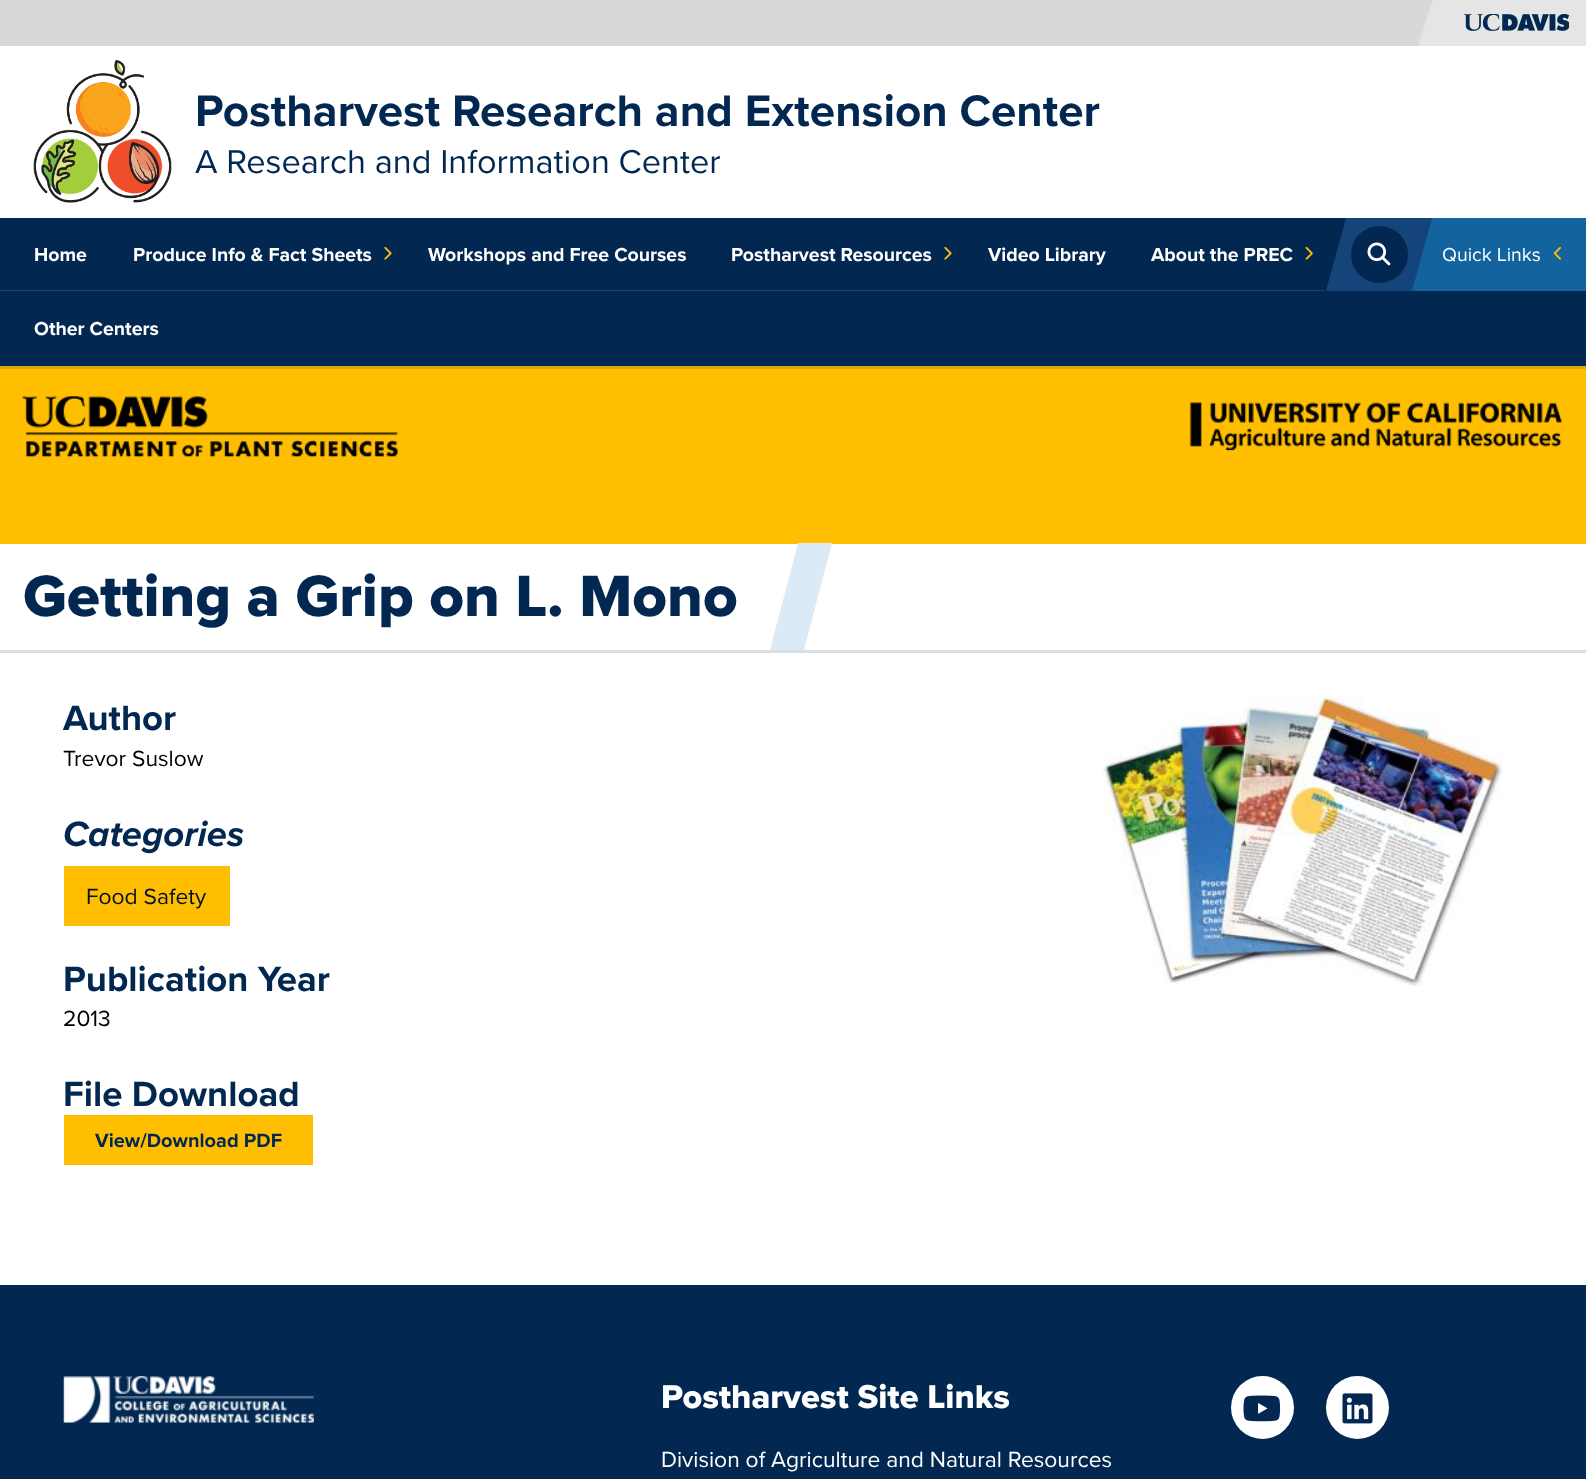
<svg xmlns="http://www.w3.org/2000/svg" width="1586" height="1479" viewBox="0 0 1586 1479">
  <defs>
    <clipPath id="clip1"><rect x="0" y="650" width="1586" height="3"/></clipPath>
    <filter id="blur1" x="-50%" y="-200%" width="200%" height="500%"><feGaussianBlur stdDeviation="0.5"/></filter>
  </defs>
  <rect width="100%" height="100%" fill="#ffffff"/>
  <rect x="0" y="0" width="1433" height="46" fill="#d8d8d8"/>
  <rect x="1435" y="0" width="151" height="46" fill="#e5e5e5"/>
  <path d="M1433 0L1418 46H1435V0Z" fill="#e5e5e5"/>
  <image x="1464" y="14" width="105" height="17" href="img1.png"/>
  <image x="33" y="60" width="139" height="143" href="img2.png"/>
  <text x="195" y="126" font-family="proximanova" font-size="45.75" font-weight="bold" fill="#022851">Postharvest Research and Extension Center</text>
  <text x="195" y="173" font-family="proximanova" font-size="34.25" fill="#022851">A Research and Information Center</text>
  <g clip-path="url(#clip1)">
    <rect x="0" y="546" width="1586" height="107" fill="#022851" fill-opacity="0.15" filter="url(#blur1)"/>
  </g>
  <rect x="0" y="366" width="1586" height="178" fill="#ffbf00"/>
  <rect x="0" y="220" width="1586" height="149" fill="#022851" fill-opacity="0.15" filter="url(#blur1)"/>
  <rect x="0" y="218" width="1586" height="148" fill="#022851"/>
  <rect x="0" y="290" width="1325" height="1" fill="#14447a"/>
  <text x="34" y="261" font-family="proximanova" font-size="19.5" font-weight="bold" fill="#ffffff">Home</text>
  <text x="133" y="261" font-family="proximanova" font-size="19.5" font-weight="bold" fill="#ffffff">Produce Info &amp; Fact Sheets</text>
  <image x="384" y="247" width="8" height="13" href="img3.png"/>
  <text x="428" y="261" font-family="proximanova" font-size="19.5" font-weight="bold" fill="#ffffff">Workshops and Free Courses</text>
  <text x="731" y="261" font-family="proximanova" font-size="19.5" font-weight="bold" fill="#ffffff">Postharvest Resources</text>
  <image x="944" y="247" width="8" height="13" href="img3.png"/>
  <text x="988" y="261" font-family="proximanova" font-size="19.5" font-weight="bold" fill="#ffffff">Video Library</text>
  <text x="1151" y="261" font-family="proximanova" font-size="19.5" font-weight="bold" fill="#ffffff">About the PREC</text>
  <image x="1305" y="247" width="8" height="13" href="img4.png"/>
  <text x="34" y="335" font-family="proximanova" font-size="19.5" font-weight="bold" fill="#ffffff">Other Centers</text>
  <path d="M1408 291L1429 218H1431V291Z" fill="#13639e"/>
  <rect x="1348" y="218" width="62" height="73" fill="#14447a"/>
  <path d="M1326 291L1346 218H1348V291Z" fill="#14447a"/>
  <circle cx="1379.5" cy="254.5" r="28.5" fill="#022851"/>
  <image x="1367" y="242" width="24" height="24" href="img5.png"/>
  <rect x="1431" y="218" width="155" height="73" fill="#13639e"/>
  <path d="M1410 218H1432L1412 291H1410Z" fill="#14447a"/>
  <text x="1442" y="261" font-family="proximanova" font-size="19.5" fill="#ffffff">Quick Links</text>
  <image x="1553" y="247" width="8" height="13" href="img6.png"/>
  <image x="22" y="396" width="376" height="61" href="img7.png"/>
  <image x="1189" y="402" width="373" height="49" href="img8.png"/>
  <text x="23" y="616" font-family="Proxima Nova" font-size="60.5" font-weight="800" fill="#022851">Getting a Grip on L. Mono</text>
  <path d="M798 543H832L804 650H770Z" fill="#dbeaf7"/>
  <text x="63" y="730" font-family="proximanova" font-size="36.5" font-weight="bold" fill="#022851">Author</text>
  <text x="63" y="766" font-family="proximanova" font-size="22.8" fill="#000000">Trevor Suslow</text>
  <text x="63" y="846" font-family="proximanova" font-size="36.5" font-weight="bold" font-style="italic" fill="#022851">Categories</text>
  <rect x="64" y="866" width="166" height="60" fill="#ffbf00"/>
  <text x="86" y="904" font-family="proximanova" font-size="22.8" fill="#001124">Food Safety</text>
  <text x="63" y="991" font-family="proximanova" font-size="36.5" font-weight="bold" fill="#022851">Publication Year</text>
  <text x="63" y="1026" font-family="proximanova" font-size="22.8" fill="#000000">2013</text>
  <text x="63" y="1106" font-family="proximanova" font-size="36.5" font-weight="bold" fill="#022851">File Download</text>
  <rect x="64" y="1115" width="249" height="50" fill="#ffbf00"/>
  <text x="95" y="1147" font-family="proximanova" font-size="20" font-weight="bold" fill="#022851">View/Download PDF</text>
  <image x="1102" y="695" width="401" height="291" href="img9.png"/>
  <rect x="0" y="1285" width="1586" height="194" fill="#022851"/>
  <image x="63" y="1376" width="251" height="47" href="img10.png"/>
  <text x="661" y="1408" font-family="Proxima Nova" font-size="34.25" font-weight="800" fill="#ffffff">Postharvest Site Links</text>
  <text x="661" y="1467" font-family="proximanova" font-size="22.8" fill="#ffffff">Division of Agriculture and Natural Resources</text>
  <circle cx="1262.5" cy="1407.5" r="31.5" fill="#ffffff"/>
  <image x="1243" y="1395" width="38" height="27" href="img11.png"/>
  <circle cx="1357.5" cy="1407.5" r="31.5" fill="#ffffff"/>
  <image x="1342" y="1393" width="31" height="31" href="img12.png"/>
</svg>
